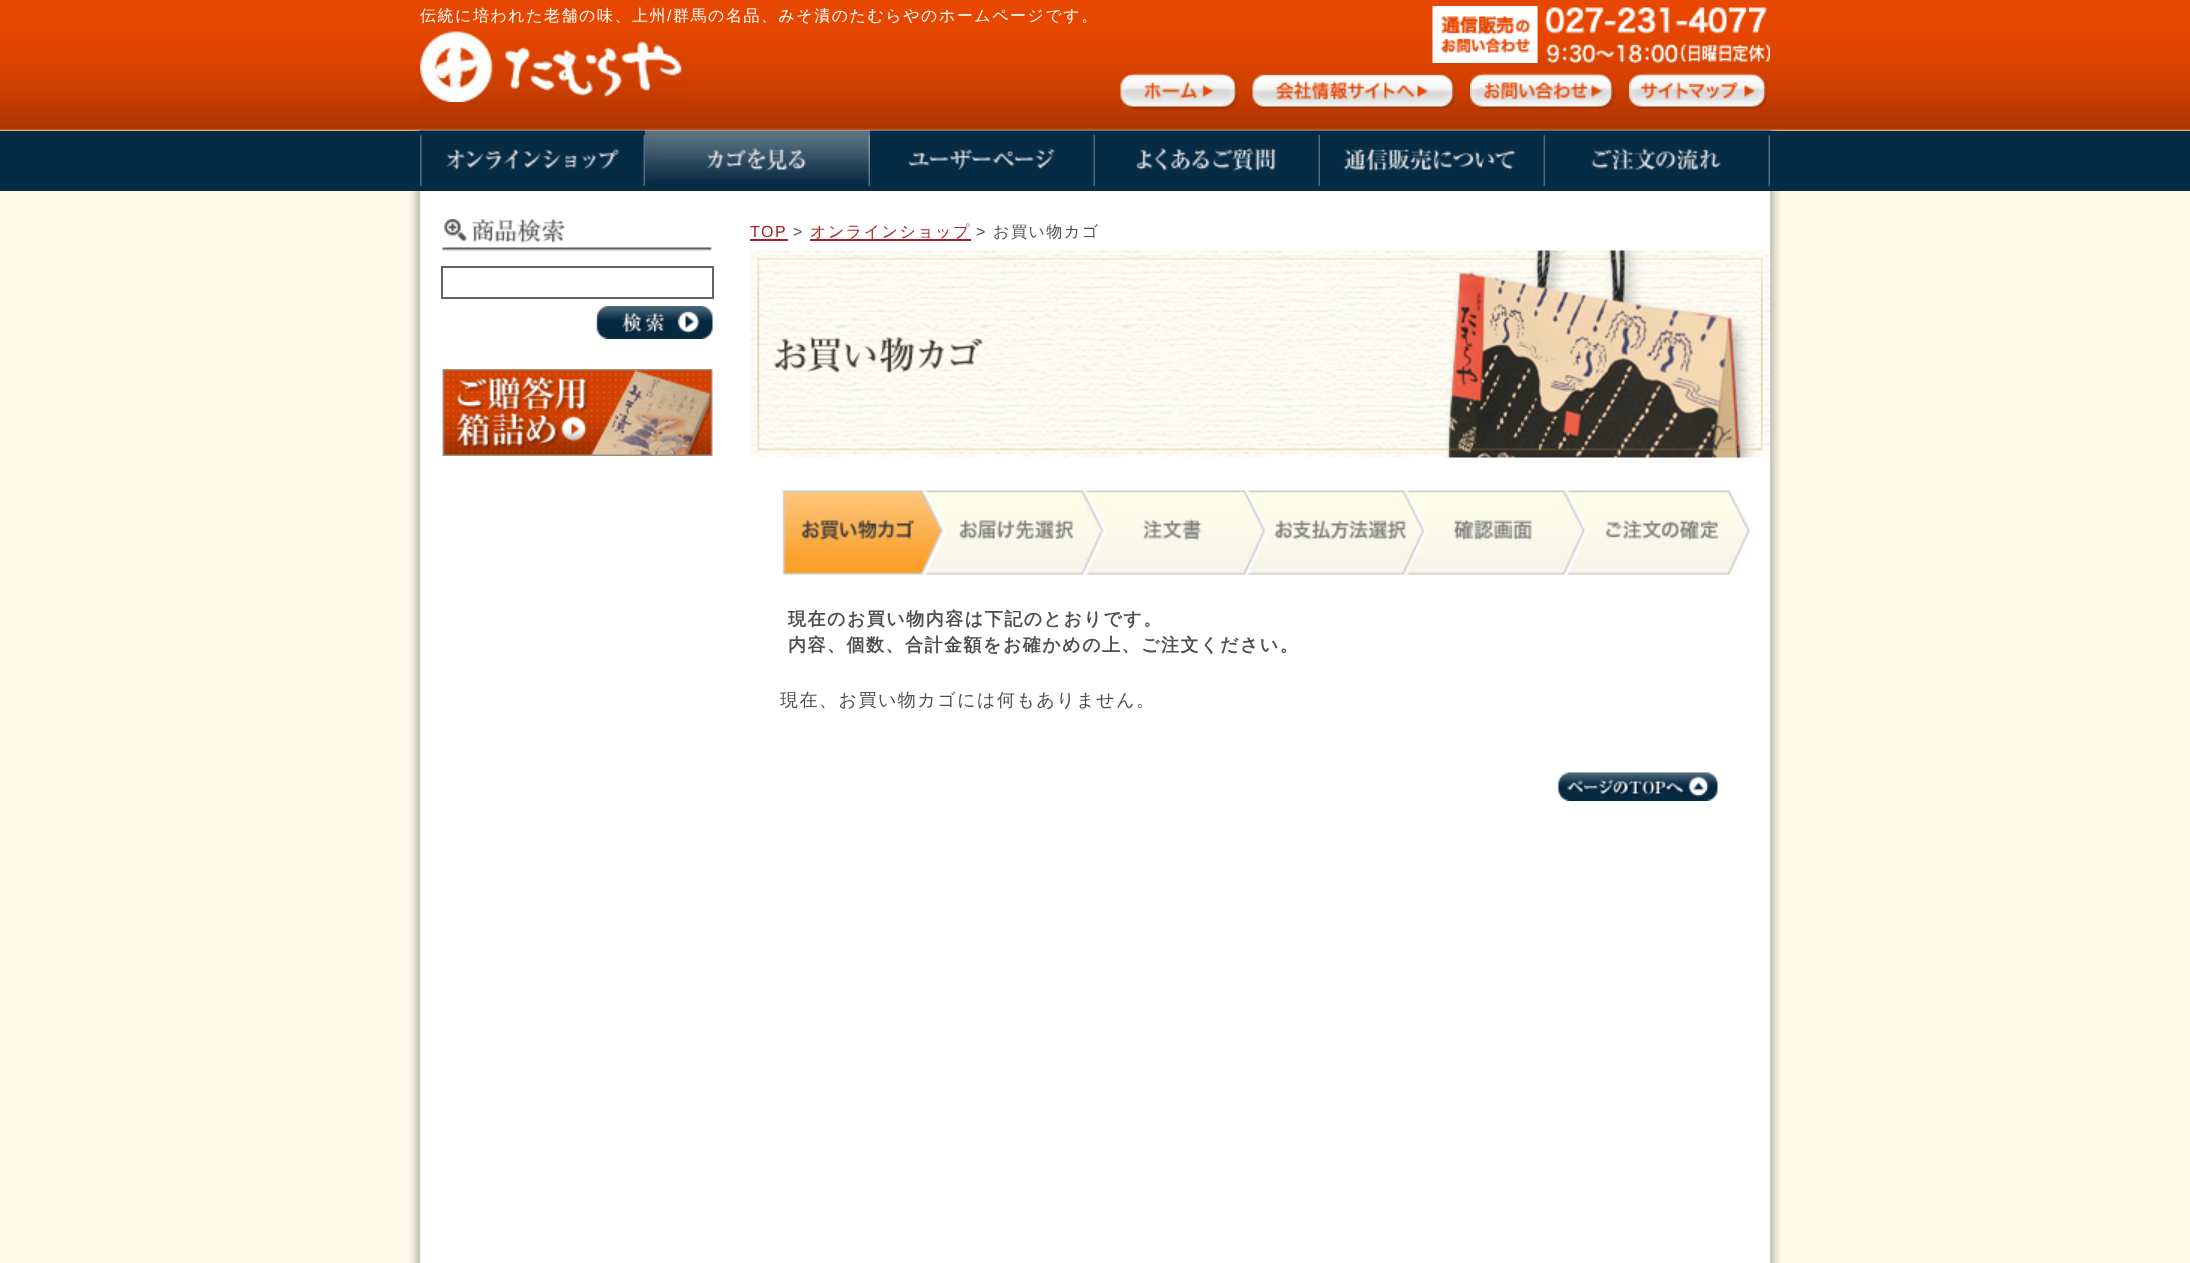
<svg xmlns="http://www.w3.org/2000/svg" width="2190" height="1263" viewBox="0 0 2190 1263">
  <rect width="100%" height="100%" fill="#fefbea"/>
  <image x="409" y="130" width="1372" height="1133" href="img1.png"/>
  <image x="0" y="0" width="2190" height="131" href="img2.png"/>
  <text x="420" y="21" font-family="WenQuanYi Zen Hei" font-size="16" font-weight="500" letter-spacing="1.5" fill="#ffffff">伝統に培われた老舗の味、上州</text>
  <text x="667" y="21" font-family="Liberation Sans" font-size="16" letter-spacing="1.5" fill="#ffffff">/</text>
  <text x="673" y="21" font-family="WenQuanYi Zen Hei" font-size="16" font-weight="500" letter-spacing="1.5" fill="#ffffff">群馬の名品、みそ漬のたむらやのホームページです。</text>
  <image x="1432" y="6" width="338" height="57" href="img3.png"/>
  <image x="1120" y="73" width="118" height="37" href="img4.png"/>
  <image x="1252" y="74" width="204" height="34" href="img5.png"/>
  <image x="1470" y="73" width="145" height="36" href="img6.png"/>
  <image x="1629" y="73" width="139" height="36" href="img7.png"/>
  <image x="420" y="31" width="270" height="71" href="img8.png"/>
  <rect x="0" y="131" width="2190" height="60" fill="#062b44"/>
  <image x="420" y="130" width="225" height="57" href="img9.png"/>
  <image x="645" y="130" width="225" height="57" href="img10.png"/>
  <image x="870" y="130" width="225" height="57" href="img11.png"/>
  <image x="1095" y="130" width="225" height="57" href="img12.png"/>
  <image x="1320" y="130" width="225" height="57" href="img13.png"/>
  <image x="1545" y="130" width="225" height="57" href="img14.png"/>
  <image x="442" y="219" width="271" height="32" href="img15.png"/>
  <rect x="442" y="267" width="271" height="31" fill="none" stroke="#626262" stroke-width="2"/>
  <image x="595" y="306" width="118" height="33" href="img16.png"/>
  <image x="442" y="369" width="271" height="87" href="img17.png"/>
  <text x="750" y="237" font-family="Liberation Sans" font-size="16" letter-spacing="1.5" fill="#a81f27">TOP</text>
  <rect x="750" y="239" width="38" height="2" fill="#a81f27"/>
  <text x="793" y="237" font-family="Liberation Sans" font-size="16" letter-spacing="1.5" fill="#4f4f4f">&gt;</text>
  <rect x="810" y="239" width="161" height="2" fill="#a81f27"/>
  <text x="810" y="237" font-family="WenQuanYi Zen Hei" font-size="16" font-weight="500" letter-spacing="1.5" fill="#a81f27">オンラインショップ</text>
  <text x="976" y="237" font-family="Liberation Sans" font-size="16" letter-spacing="1.5" fill="#4f4f4f">&gt;</text>
  <text x="993" y="237" font-family="WenQuanYi Zen Hei" font-size="16" font-weight="500" letter-spacing="1.5" fill="#4f4f4f">お買い物カゴ</text>
  <image x="750" y="250" width="1020" height="208" href="img18.png"/>
  <image x="780" y="487" width="972" height="91" href="img19.png"/>
  <text x="788" y="625" font-family="WenQuanYi Zen Hei" font-size="18" font-weight="bold" letter-spacing="1.5" fill="#4f4f4f">現在のお買い物内容は下記のとおりです。</text>
  <text x="788" y="651" font-family="WenQuanYi Zen Hei" font-size="18" font-weight="bold" letter-spacing="1.5" fill="#4f4f4f">内容、個数、合計金額をお確かめの上、ご注文ください。</text>
  <text x="780" y="706" font-family="WenQuanYi Zen Hei" font-size="18" font-weight="500" letter-spacing="1.5" fill="#4f4f4f">現在、お買い物カゴには何もありません。</text>
  <image x="1557" y="772" width="161" height="29" href="img20.png"/>
</svg>
